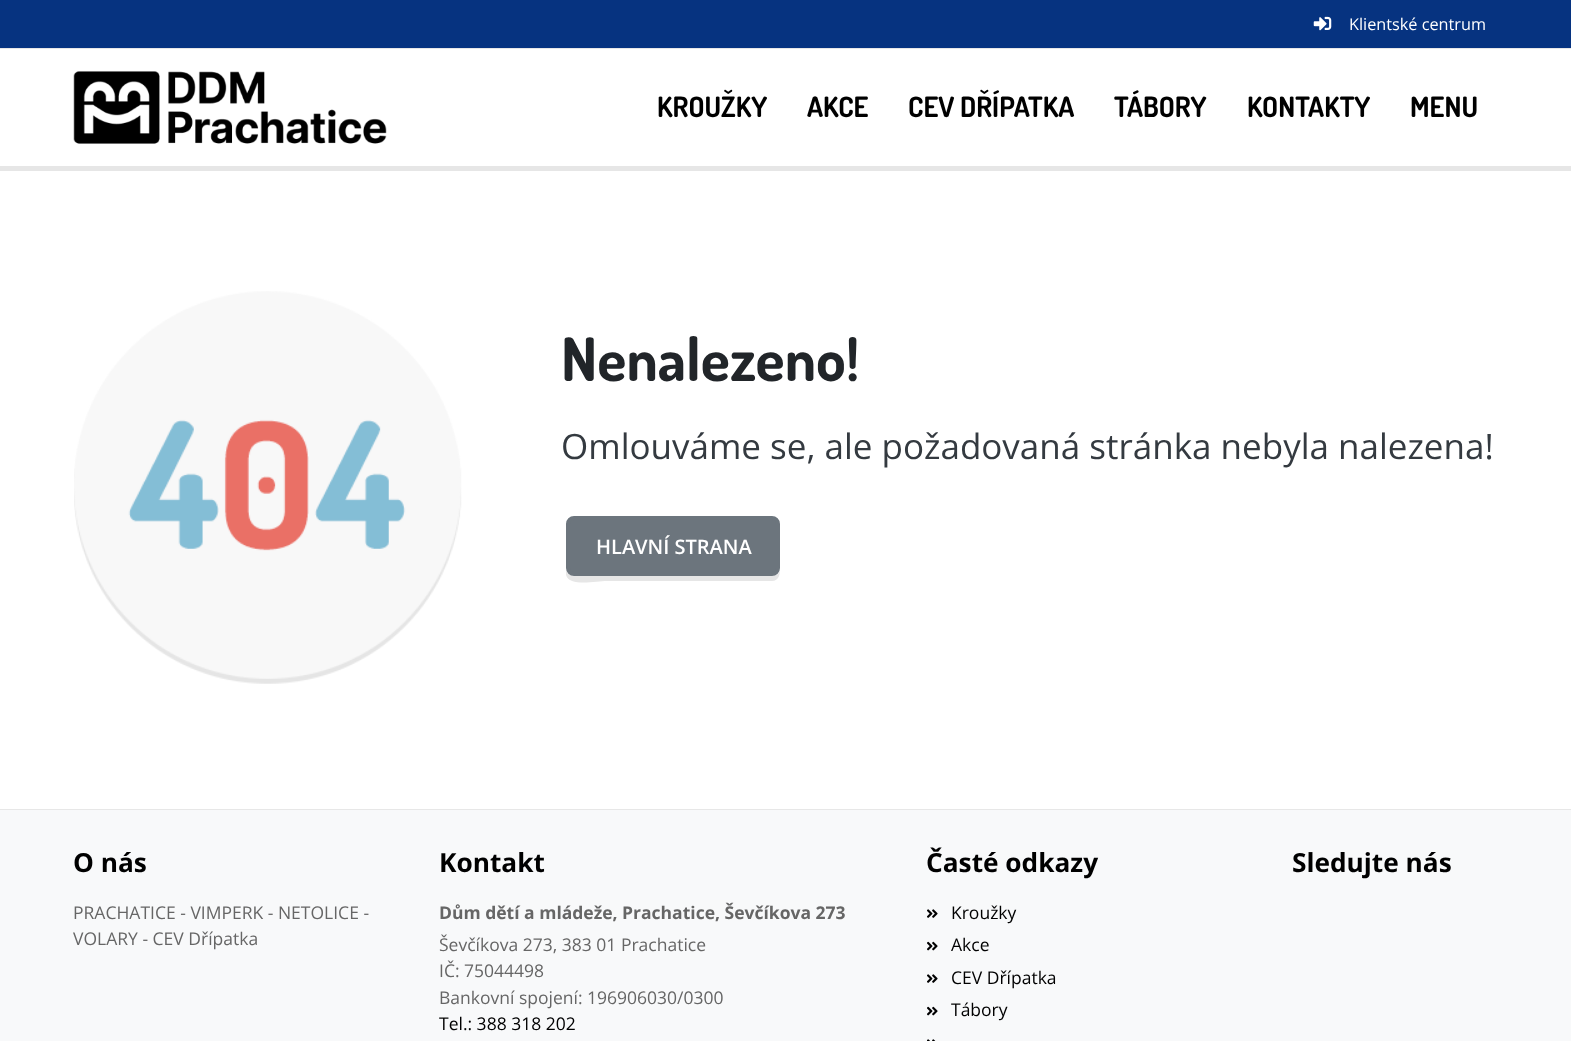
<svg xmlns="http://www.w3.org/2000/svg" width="1571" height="1041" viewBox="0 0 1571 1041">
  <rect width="100%" height="100%" fill="#ffffff"/>
  <rect x="0" y="0" width="1571" height="48" fill="#063380"/>
  <rect x="0" y="48" width="1571" height="1" fill="#e7e7e7"/>
  <image x="1313" y="16" width="19" height="15" href="img1.png"/>
  <text x="1349" y="30" font-family="Open Sans" font-size="16.25" fill="#ffffff">Klientské centrum</text>
  <rect x="0" y="166" width="1571" height="5" fill="#e6e6e6"/>
  <image x="73" y="71" width="314" height="73" href="img2.png"/>
  <text x="657" y="117" font-family="Dosis" font-size="28" font-weight="bold" fill="#000000">KROUŽKY</text>
  <text x="807" y="117" font-family="Dosis" font-size="28" font-weight="bold" fill="#000000">AKCE</text>
  <text x="908" y="117" font-family="Dosis" font-size="28" font-weight="bold" fill="#000000">CEV DŘÍPATKA</text>
  <text x="1114" y="117" font-family="Dosis" font-size="28" font-weight="bold" fill="#000000">TÁBORY</text>
  <text x="1247" y="117" font-family="Dosis" font-size="28" font-weight="bold" fill="#000000">KONTAKTY</text>
  <text x="1410" y="117" font-family="Dosis" font-size="28" font-weight="bold" fill="#000000">MENU</text>
  <image x="74" y="291" width="388" height="393" href="img3.png"/>
  <text x="561" y="381" font-family="Dosis" font-size="60" font-weight="bold" fill="#212529">Nenalezeno!</text>
  <text x="561" y="459" font-family="Open Sans" font-size="35" fill="#343a40">Omlouváme se, ale požadovaná stránka nebyla nalezena!</text>
  <path d="M566 527V575C569 587 596 581 607 581H772C779 581 780 574 780 569C780 573 777 576 772 576H574C570 576 566 573 566 569Z" fill="#e6e6e6"/>
  <rect x="568" y="518" width="210" height="56" rx="6" fill="#6c757d" stroke="#6c757d" stroke-width="4"/>
  <text x="596" y="554" font-family="Open Sans" font-size="20" font-weight="600" fill="#ffffff">HLAVNÍ STRANA</text>
  <rect x="0" y="809" width="1571" height="1" fill="#e7e7e7"/>
  <rect x="0" y="810" width="1571" height="231" fill="#f8f9fa"/>
  <text x="73" y="872" font-family="Open Sans" font-size="26.25" font-weight="bold" fill="#000000">O nás</text>
  <text x="73" y="919" font-family="Open Sans" font-size="17.5" fill="#666666">PRACHATICE - VIMPERK - NETOLICE -</text>
  <text x="73" y="945" font-family="Open Sans" font-size="17.5" fill="#666666">VOLARY - CEV Dřípatka</text>
  <text x="439" y="872" font-family="Open Sans" font-size="26.25" font-weight="bold" fill="#000000">Kontakt</text>
  <text x="439" y="919" font-family="Open Sans" font-size="17.5" font-weight="bold" fill="#666666">Dům dětí a mládeže, Prachatice, Ševčíkova 273</text>
  <text x="439" y="951" font-family="Open Sans" font-size="17.5" fill="#666666">Ševčíkova 273, 383 01 Prachatice</text>
  <text x="439" y="977" font-family="Open Sans" font-size="17.5" fill="#666666">IČ: 75044498</text>
  <text x="439" y="1004" font-family="Open Sans" font-size="17.5" fill="#666666">Bankovní spojení: 196906030/0300</text>
  <text x="439" y="1030" font-family="Open Sans" font-size="17.5" fill="#000000">Tel.: 388 318 202</text>
  <text x="926" y="872" font-family="Open Sans" font-size="26.25" font-weight="bold" fill="#000000">Časté odkazy</text>
  <image x="927" y="909" width="11" height="9" href="img4.png"/>
  <text x="951" y="919" font-family="Open Sans" font-size="17.5" fill="#000000">Kroužky</text>
  <image x="927" y="941" width="11" height="10" href="img5.png"/>
  <text x="951" y="951" font-family="Open Sans" font-size="17.5" fill="#000000">Akce</text>
  <image x="927" y="974" width="11" height="9" href="img4.png"/>
  <text x="951" y="984" font-family="Open Sans" font-size="17.5" fill="#000000">CEV Dřípatka</text>
  <image x="927" y="1006" width="11" height="10" href="img5.png"/>
  <text x="951" y="1016" font-family="Open Sans" font-size="17.5" fill="#000000">Tábory</text>
  <image x="927" y="1039" width="9" height="2" href="img6.png"/>
  <text x="1292" y="872" font-family="Open Sans" font-size="26.25" font-weight="bold" fill="#000000">Sledujte nás</text>
</svg>
